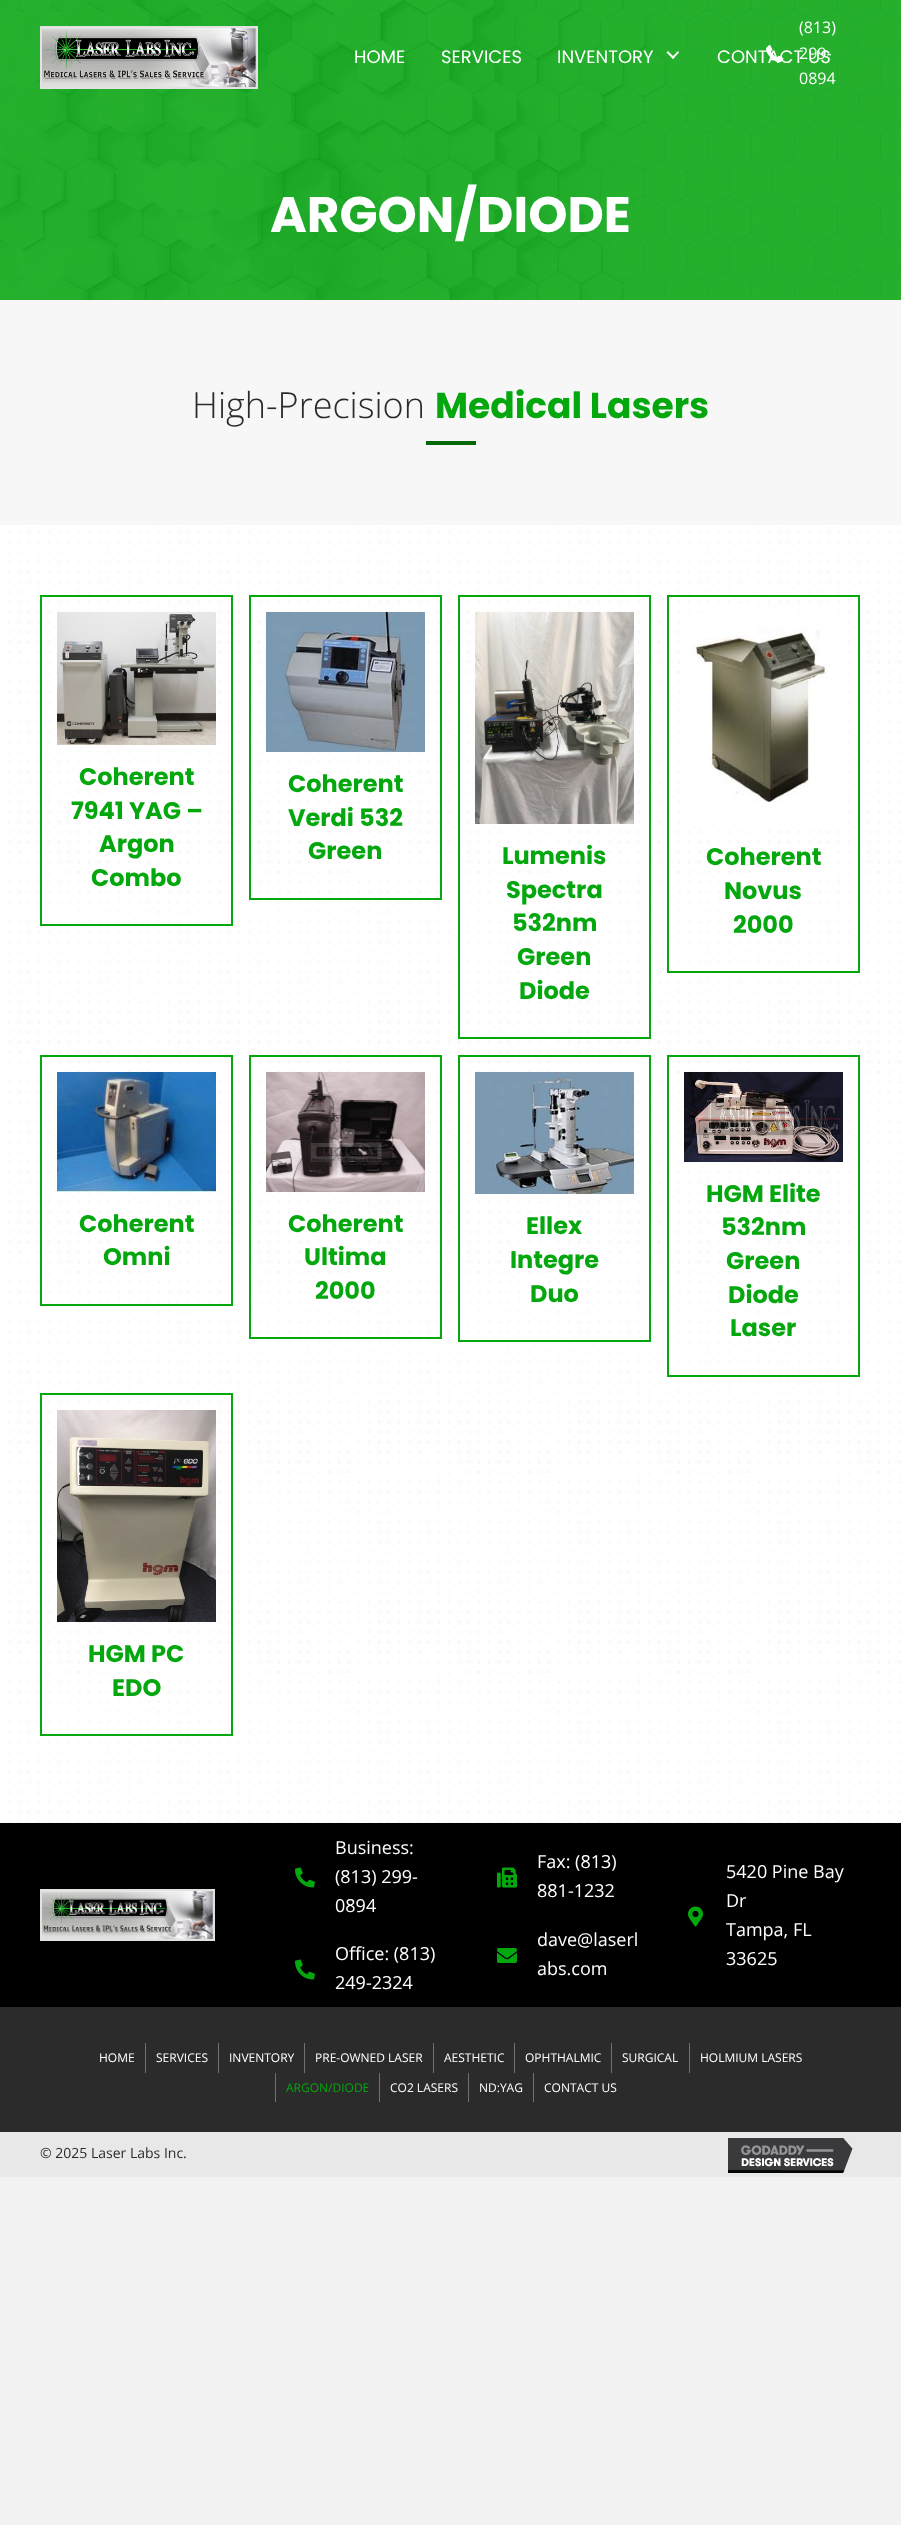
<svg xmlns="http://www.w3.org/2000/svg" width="901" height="2525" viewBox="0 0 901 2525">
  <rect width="100%" height="100%" fill="#f2f2f2"/>
  <image x="0" y="0" width="901" height="300" href="img3.png"/>
  <rect x="41" y="27" width="216" height="61" fill="none" stroke="#e2e2e2" stroke-width="2"/>
  <image x="42" y="28" width="214" height="59" href="img1.png"/>
  <image x="766" y="44" width="18" height="19" href="img2.png"/>
  <text x="799" y="33" font-family="Open Sans" font-size="16" fill="#ffffff">(813)</text>
  <text x="799" y="59" font-family="Open Sans" font-size="16" fill="#ffffff">299-</text>
  <text x="799" y="84" font-family="Open Sans" font-size="16" fill="#ffffff">0894</text>
  <text x="354" y="63" font-family="Poppins" font-size="18" fill="#ffffff">HOME</text>
  <text x="441" y="63" font-family="Poppins" font-size="18" fill="#ffffff">SERVICES</text>
  <text x="557" y="63" font-family="Poppins" font-size="18" fill="#ffffff">INVENTORY</text>
  <path d="M678 51L679 52.5L673 59L671.5 57.5Z" fill="#ffffff"/>
  <path d="M668 51L674.5 57.5L673 59L666.5 52.5Z" fill="#ffffff"/>
  <text x="717" y="63" font-family="Poppins" font-size="18" fill="#ffffff">CONTACT US</text>
  <rect x="0" y="525" width="901" height="1298" fill="#ffffff"/>
  <text x="270" y="232" font-family="Poppins" font-size="50" font-weight="bold" fill="#ffffff">ARGON/DIODE</text>
  <rect x="0" y="300" width="901" height="225" fill="#f7f7f7"/>
  <text x="192" y="418" font-family="Open Sans" font-size="36" font-weight="300" fill="#2b2b2b">High-Precision</text>
  <text x="435" y="418" font-family="Poppins" font-size="36" font-weight="bold" fill="#04a70e">Medical Lasers</text>
  <rect x="426" y="441" width="50" height="4" fill="#046806"/>
  <image x="0" y="525" width="901" height="1298" href="img4.png"/>
  <rect x="41" y="596" width="191" height="329" fill="none" stroke="#04a70e" stroke-width="2"/>
  <image x="57" y="612" width="159" height="133" href="img5.png"/>
  <text x="79" y="785" font-family="Poppins" font-size="24" font-weight="bold" fill="#04a70e">Coherent</text>
  <text x="71" y="819" font-family="Poppins" font-size="24" font-weight="bold" fill="#04a70e">7941 YAG –</text>
  <text x="99" y="852" font-family="Poppins" font-size="24" font-weight="bold" fill="#04a70e">Argon</text>
  <text x="91" y="886" font-family="Poppins" font-size="24" font-weight="bold" fill="#04a70e">Combo</text>
  <rect x="250" y="596" width="191" height="303" fill="none" stroke="#04a70e" stroke-width="2"/>
  <image x="266" y="612" width="159" height="140" href="img6.png"/>
  <text x="288" y="792" font-family="Poppins" font-size="24" font-weight="bold" fill="#04a70e">Coherent</text>
  <text x="288" y="826" font-family="Poppins" font-size="24" font-weight="bold" fill="#04a70e">Verdi 532</text>
  <text x="308" y="859" font-family="Poppins" font-size="24" font-weight="bold" fill="#04a70e">Green</text>
  <rect x="459" y="596" width="191" height="442" fill="none" stroke="#04a70e" stroke-width="2"/>
  <image x="475" y="612" width="159" height="212" href="img7.png"/>
  <text x="502" y="864" font-family="Poppins" font-size="24" font-weight="bold" fill="#04a70e">Lumenis</text>
  <text x="506" y="898" font-family="Poppins" font-size="24" font-weight="bold" fill="#04a70e">Spectra</text>
  <text x="512" y="931" font-family="Poppins" font-size="24" font-weight="bold" fill="#04a70e">532nm</text>
  <text x="517" y="965" font-family="Poppins" font-size="24" font-weight="bold" fill="#04a70e">Green</text>
  <text x="519" y="999" font-family="Poppins" font-size="24" font-weight="bold" fill="#04a70e">Diode</text>
  <rect x="668" y="596" width="191" height="376" fill="none" stroke="#04a70e" stroke-width="2"/>
  <image x="687" y="612" width="154" height="212" href="img8.png"/>
  <text x="706" y="865" font-family="Poppins" font-size="24" font-weight="bold" fill="#04a70e">Coherent</text>
  <text x="724" y="899" font-family="Poppins" font-size="24" font-weight="bold" fill="#04a70e">Novus</text>
  <text x="733" y="933" font-family="Poppins" font-size="24" font-weight="bold" fill="#04a70e">2000</text>
  <rect x="41" y="1056" width="191" height="249" fill="none" stroke="#04a70e" stroke-width="2"/>
  <image x="57" y="1072" width="159" height="120" href="img9.png"/>
  <text x="79" y="1232" font-family="Poppins" font-size="24" font-weight="bold" fill="#04a70e">Coherent</text>
  <text x="103" y="1265" font-family="Poppins" font-size="24" font-weight="bold" fill="#04a70e">Omni</text>
  <rect x="250" y="1056" width="191" height="282" fill="none" stroke="#04a70e" stroke-width="2"/>
  <image x="266" y="1072" width="159" height="120" href="img10.png"/>
  <text x="288" y="1232" font-family="Poppins" font-size="24" font-weight="bold" fill="#04a70e">Coherent</text>
  <text x="304" y="1265" font-family="Poppins" font-size="24" font-weight="bold" fill="#04a70e">Ultima</text>
  <text x="315" y="1299" font-family="Poppins" font-size="24" font-weight="bold" fill="#04a70e">2000</text>
  <rect x="459" y="1056" width="191" height="285" fill="none" stroke="#04a70e" stroke-width="2"/>
  <image x="475" y="1072" width="159" height="122" href="img11.png"/>
  <text x="526" y="1234" font-family="Poppins" font-size="24" font-weight="bold" fill="#04a70e">Ellex</text>
  <text x="510" y="1268" font-family="Poppins" font-size="24" font-weight="bold" fill="#04a70e">Integre</text>
  <text x="530" y="1302" font-family="Poppins" font-size="24" font-weight="bold" fill="#04a70e">Duo</text>
  <rect x="668" y="1056" width="191" height="320" fill="none" stroke="#04a70e" stroke-width="2"/>
  <image x="684" y="1072" width="159" height="90" href="img12.png"/>
  <text x="706" y="1202" font-family="Poppins" font-size="24" font-weight="bold" fill="#04a70e">HGM Elite</text>
  <text x="721" y="1235" font-family="Poppins" font-size="24" font-weight="bold" fill="#04a70e">532nm</text>
  <text x="726" y="1269" font-family="Poppins" font-size="24" font-weight="bold" fill="#04a70e">Green</text>
  <text x="728" y="1303" font-family="Poppins" font-size="24" font-weight="bold" fill="#04a70e">Diode</text>
  <text x="730" y="1336" font-family="Poppins" font-size="24" font-weight="bold" fill="#04a70e">Laser</text>
  <rect x="41" y="1394" width="191" height="341" fill="none" stroke="#04a70e" stroke-width="2"/>
  <image x="57" y="1410" width="159" height="212" href="img13.png"/>
  <text x="88" y="1662" font-family="Poppins" font-size="24" font-weight="bold" fill="#04a70e">HGM PC</text>
  <text x="112" y="1696" font-family="Poppins" font-size="24" font-weight="bold" fill="#04a70e">EDO</text>
  <rect x="0" y="1823" width="901" height="184" fill="#000000"/>
  <rect x="41" y="1890" width="173" height="50" fill="none" stroke="#e2e2e2" stroke-width="2"/>
  <image x="42" y="1891" width="171" height="48" href="img14.png"/>
  <image x="295" y="1867" width="20" height="21" href="img15.png"/>
  <text x="335" y="1854" font-family="Open Sans" font-size="18" fill="#ffffff">Business:</text>
  <text x="335" y="1883" font-family="Open Sans" font-size="18" fill="#ffffff">(813) 299-</text>
  <text x="335" y="1912" font-family="Open Sans" font-size="18" fill="#ffffff">0894</text>
  <image x="295" y="1959" width="20" height="21" href="img15.png"/>
  <text x="335" y="1960" font-family="Open Sans" font-size="18" fill="#ffffff">Office: (813)</text>
  <text x="335" y="1989" font-family="Open Sans" font-size="18" fill="#ffffff">249-2324</text>
  <image x="497" y="1867" width="20" height="21" href="img16.png"/>
  <text x="537" y="1868" font-family="Open Sans" font-size="18" fill="#ffffff">Fax: (813)</text>
  <text x="537" y="1897" font-family="Open Sans" font-size="18" fill="#ffffff">881-1232</text>
  <image x="497" y="1948" width="20" height="15" href="img17.png"/>
  <text x="537" y="1946" font-family="Open Sans" font-size="18" fill="#ffffff">dave@laserl</text>
  <text x="537" y="1975" font-family="Open Sans" font-size="18" fill="#ffffff">abs.com</text>
  <image x="688" y="1906" width="15" height="21" href="img18.png"/>
  <text x="726" y="1878" font-family="Open Sans" font-size="18" fill="#ffffff">5420 Pine Bay</text>
  <text x="726" y="1907" font-family="Open Sans" font-size="18" fill="#ffffff">Dr</text>
  <text x="726" y="1936" font-family="Open Sans" font-size="18" fill="#ffffff">Tampa, FL</text>
  <text x="726" y="1965" font-family="Open Sans" font-size="18" fill="#ffffff">33625</text>
  <rect x="0" y="2007" width="901" height="125" fill="#2b2b2b"/>
  <text x="99" y="2062" font-family="Open Sans" font-size="12" fill="#ffffff">HOME</text>
  <rect x="145" y="2043" width="1" height="30" fill="#717171"/>
  <text x="156" y="2062" font-family="Open Sans" font-size="12" fill="#ffffff">SERVICES</text>
  <rect x="218" y="2043" width="1" height="30" fill="#717171"/>
  <text x="229" y="2062" font-family="Open Sans" font-size="12" fill="#ffffff">INVENTORY</text>
  <rect x="304" y="2043" width="1" height="30" fill="#717171"/>
  <text x="315" y="2062" font-family="Open Sans" font-size="12" fill="#ffffff">PRE-OWNED LASER</text>
  <rect x="433" y="2043" width="1" height="30" fill="#717171"/>
  <text x="444" y="2062" font-family="Open Sans" font-size="12" fill="#ffffff">AESTHETIC</text>
  <rect x="514" y="2043" width="1" height="30" fill="#717171"/>
  <text x="525" y="2062" font-family="Open Sans" font-size="12" fill="#ffffff">OPHTHALMIC</text>
  <rect x="611" y="2043" width="1" height="30" fill="#717171"/>
  <text x="622" y="2062" font-family="Open Sans" font-size="12" fill="#ffffff">SURGICAL</text>
  <rect x="689" y="2043" width="1" height="30" fill="#717171"/>
  <text x="700" y="2062" font-family="Open Sans" font-size="12" fill="#ffffff">HOLMIUM LASERS</text>
  <rect x="275" y="2073" width="1" height="29" fill="#717171"/>
  <text x="286" y="2092" font-family="Open Sans" font-size="12" fill="#04a70e">ARGON/DIODE</text>
  <rect x="379" y="2073" width="1" height="29" fill="#717171"/>
  <text x="390" y="2092" font-family="Open Sans" font-size="12" fill="#ffffff">CO2 LASERS</text>
  <rect x="468" y="2073" width="1" height="29" fill="#717171"/>
  <text x="479" y="2092" font-family="Open Sans" font-size="12" fill="#ffffff">ND:YAG</text>
  <rect x="533" y="2073" width="1" height="29" fill="#717171"/>
  <text x="544" y="2092" font-family="Open Sans" font-size="12" fill="#ffffff">CONTACT US</text>
  <rect x="0" y="2132" width="901" height="45" fill="#e8e8e8"/>
  <text x="40" y="2158" font-family="Open Sans" font-size="14" fill="#2b2b2b">© 2025 Laser Labs Inc.</text>
  <image x="728" y="2138" width="125" height="35" href="img19.png"/>
</svg>
